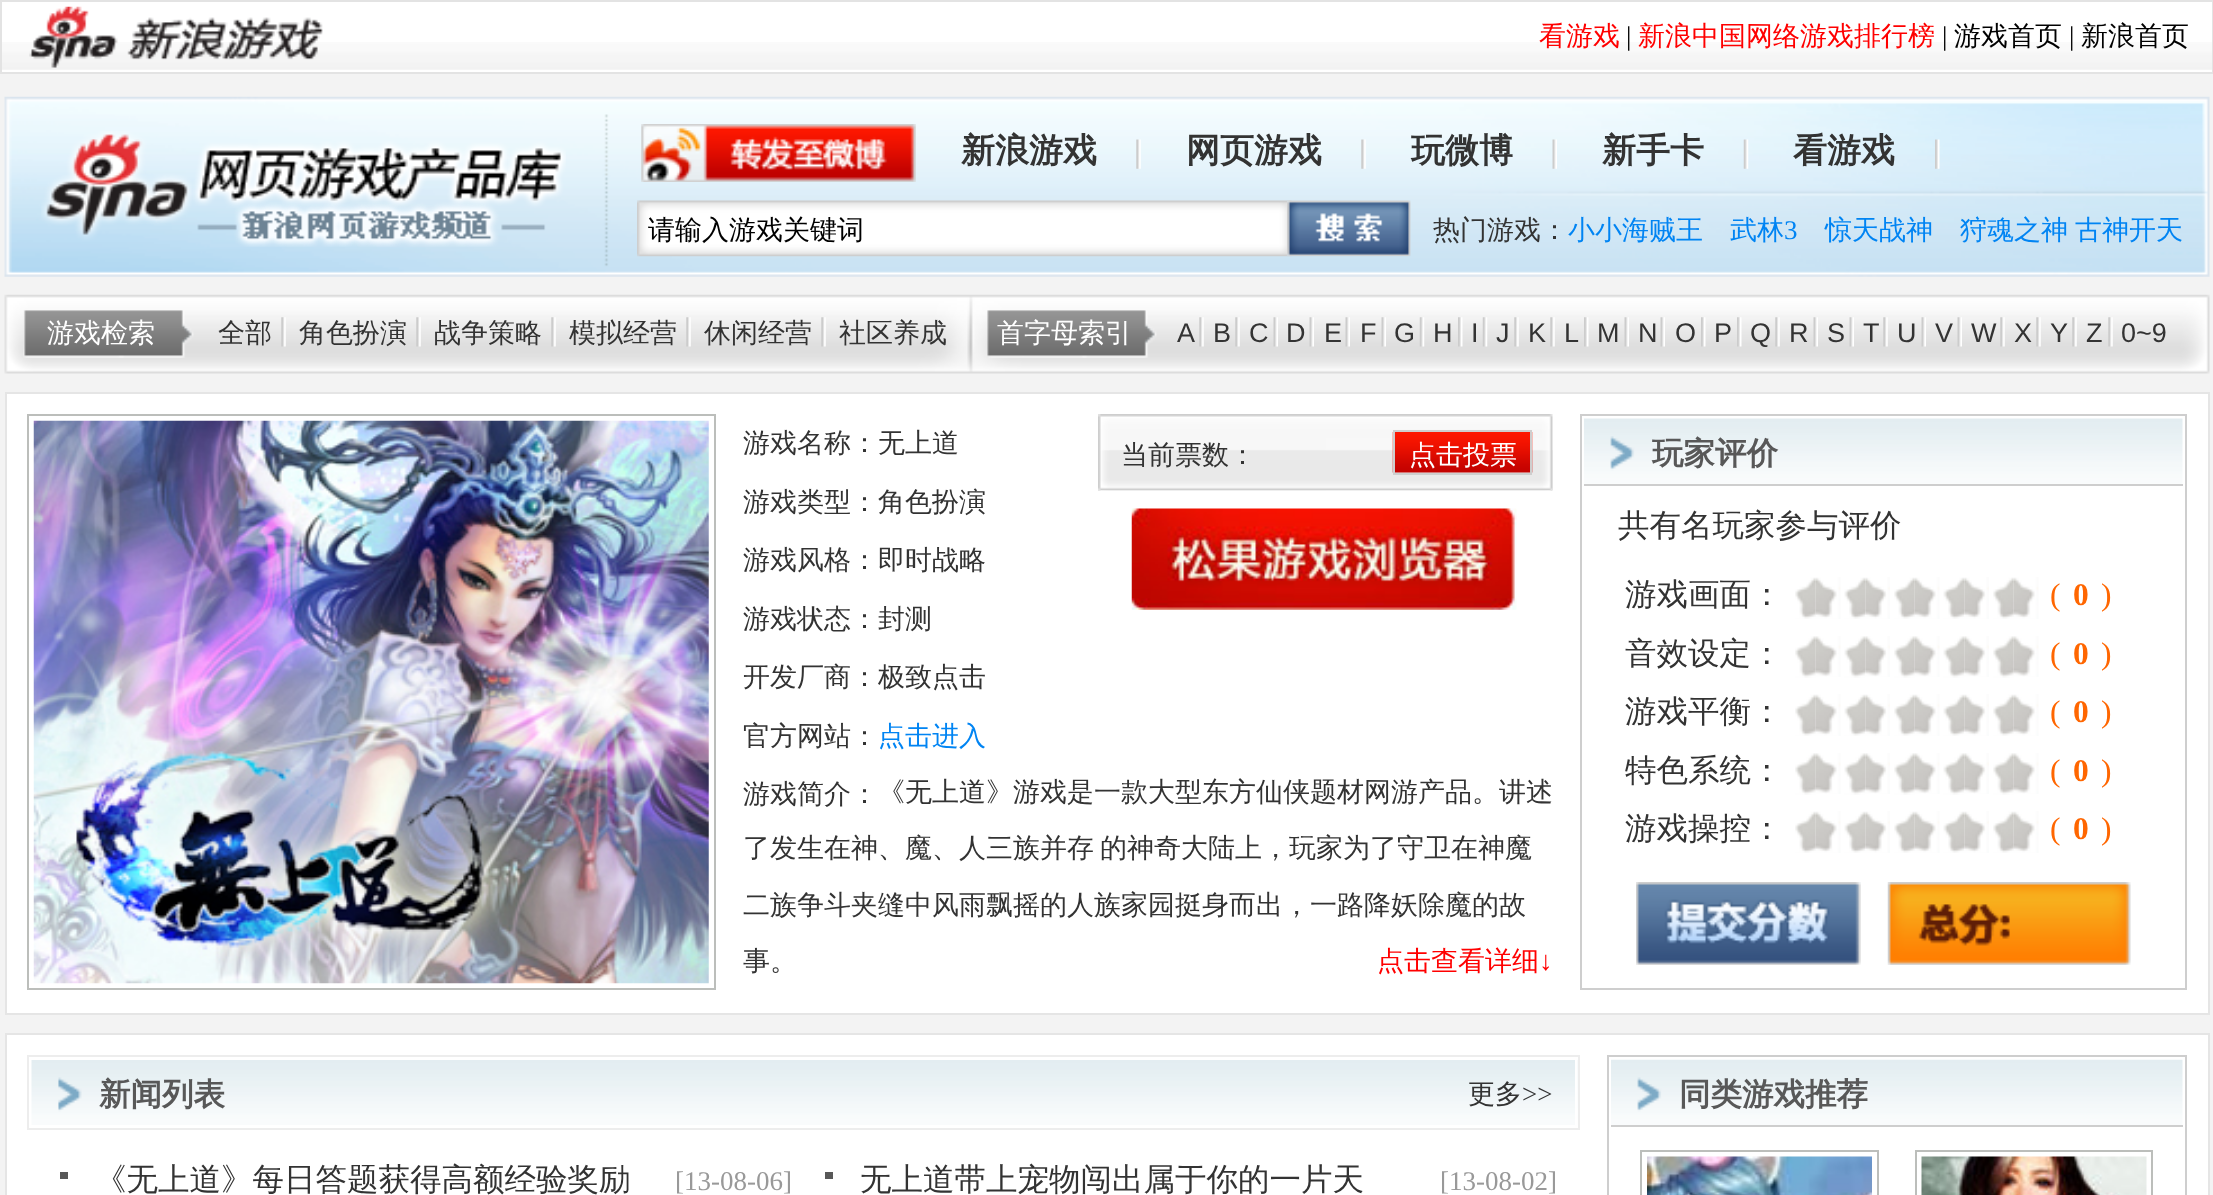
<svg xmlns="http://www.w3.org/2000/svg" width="2213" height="1195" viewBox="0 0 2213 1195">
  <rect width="100%" height="100%" fill="#f3f3f3"/>
  <rect x="2" y="2" width="2210" height="70" fill="#ffffff"/>
  <image x="2" y="42" width="2210" height="28" href="img1.png"/>
  <rect x="1" y="1" width="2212" height="72" fill="none" stroke="#e3e3e3" stroke-width="2"/>
  <image x="29" y="6" width="89" height="62" href="img2.png"/>
  <image x="127" y="17" width="196" height="43" href="img3.png"/>
  <text x="1539" y="45" font-family="WenQuanYi Zen Hei" font-size="27" font-weight="500" fill="#ff0000">看游戏</text>
  <text x="1626" y="45" font-family="Liberation Serif" font-size="27" fill="#000000">|</text>
  <text x="1638" y="45" font-family="WenQuanYi Zen Hei" font-size="27" font-weight="500" fill="#ff0000">新浪中国网络游戏排行榜</text>
  <text x="1942" y="45" font-family="Liberation Serif" font-size="27" fill="#000000">|</text>
  <text x="1954" y="45" font-family="WenQuanYi Zen Hei" font-size="27" font-weight="500" fill="#000000">游戏首页</text>
  <text x="2069" y="45" font-family="Liberation Serif" font-size="27" fill="#000000">|</text>
  <text x="2081" y="45" font-family="WenQuanYi Zen Hei" font-size="27" font-weight="500" fill="#000000">新浪首页</text>
  <image x="4" y="96" width="2206" height="181" href="img4.png"/>
  <image x="41" y="131" width="525" height="116" href="img5.png"/>
  <image x="641" y="124" width="275" height="58" href="img6.png"/>
  <image x="1136" y="139" width="5" height="30" href="img7.png"/>
  <text x="961" y="162" font-family="WenQuanYi Zen Hei" font-size="34" font-weight="bold" fill="#333333">新浪游戏</text>
  <image x="1361" y="139" width="5" height="30" href="img7.png"/>
  <text x="1186" y="162" font-family="WenQuanYi Zen Hei" font-size="34" font-weight="bold" fill="#333333">网页游戏</text>
  <image x="1552" y="139" width="5" height="30" href="img8.png"/>
  <text x="1411" y="162" font-family="WenQuanYi Zen Hei" font-size="34" font-weight="bold" fill="#333333">玩微博</text>
  <image x="1743" y="139" width="6" height="30" href="img9.png"/>
  <text x="1602" y="162" font-family="WenQuanYi Zen Hei" font-size="34" font-weight="bold" fill="#333333">新手卡</text>
  <image x="1935" y="139" width="5" height="30" href="img10.png"/>
  <text x="1793" y="162" font-family="WenQuanYi Zen Hei" font-size="34" font-weight="bold" fill="#333333">看游戏</text>
  <image x="637" y="200" width="655" height="57" href="img11.png"/>
  <text x="648" y="239" font-family="WenQuanYi Zen Hei" font-size="27" font-weight="500" fill="#000000">请输入游戏关键词</text>
  <image x="1287" y="200" width="124" height="57" href="img12.png"/>
  <text x="1433" y="239" font-family="WenQuanYi Zen Hei" font-size="27" font-weight="500" fill="#333333">热门游戏：</text>
  <text x="1568" y="239" font-family="WenQuanYi Zen Hei" font-size="27" font-weight="500" fill="#0084f3">小小海贼王</text>
  <text x="1730" y="239" font-family="WenQuanYi Zen Hei" font-size="27" font-weight="500" fill="#0084f3">武林</text>
  <text x="1784" y="239" font-family="Liberation Serif" font-size="27" fill="#0084f3">3</text>
  <text x="1825" y="239" font-family="WenQuanYi Zen Hei" font-size="27" font-weight="500" fill="#0084f3">惊天战神</text>
  <text x="1960" y="239" font-family="WenQuanYi Zen Hei" font-size="27" font-weight="500" fill="#0084f3">狩魂之神</text>
  <text x="2075" y="239" font-family="WenQuanYi Zen Hei" font-size="27" font-weight="500" fill="#0084f3">古神开天</text>
  <image x="4" y="294" width="2206" height="80" href="img13.png"/>
  <image x="23" y="310" width="171" height="48" href="img14.png"/>
  <text x="47" y="342" font-family="WenQuanYi Zen Hei" font-size="27" font-weight="500" fill="#ffffff">游戏检索</text>
  <text x="218" y="342" font-family="WenQuanYi Zen Hei" font-size="27" font-weight="500" fill="#333333">全部</text>
  <image x="281" y="317" width="5" height="30" href="img15.png"/>
  <text x="299" y="342" font-family="WenQuanYi Zen Hei" font-size="27" font-weight="500" fill="#333333">角色扮演</text>
  <image x="416" y="317" width="5" height="30" href="img15.png"/>
  <text x="434" y="342" font-family="WenQuanYi Zen Hei" font-size="27" font-weight="500" fill="#333333">战争策略</text>
  <image x="551" y="317" width="5" height="30" href="img15.png"/>
  <text x="569" y="342" font-family="WenQuanYi Zen Hei" font-size="27" font-weight="500" fill="#333333">模拟经营</text>
  <image x="686" y="317" width="5" height="30" href="img16.png"/>
  <text x="704" y="342" font-family="WenQuanYi Zen Hei" font-size="27" font-weight="500" fill="#333333">休闲经营</text>
  <image x="821" y="317" width="5" height="30" href="img15.png"/>
  <text x="839" y="342" font-family="WenQuanYi Zen Hei" font-size="27" font-weight="500" fill="#333333">社区养成</text>
  <image x="987" y="310" width="170" height="48" href="img17.png"/>
  <text x="997" y="342" font-family="WenQuanYi Zen Hei" font-size="27" font-weight="500" fill="#ffffff">首字母索引</text>
  <text x="1177" y="342" font-family="Liberation Sans" font-size="27" fill="#333333">A</text>
  <image x="1199" y="317" width="5" height="30" href="img16.png"/>
  <text x="1213" y="342" font-family="Liberation Sans" font-size="27" fill="#333333">B</text>
  <image x="1235" y="317" width="5" height="30" href="img16.png"/>
  <text x="1249" y="342" font-family="Liberation Sans" font-size="27" fill="#333333">C</text>
  <image x="1273" y="317" width="5" height="30" href="img18.png"/>
  <text x="1286" y="342" font-family="Liberation Sans" font-size="27" fill="#333333">D</text>
  <image x="1309" y="317" width="5" height="30" href="img18.png"/>
  <text x="1324" y="342" font-family="Liberation Sans" font-size="27" fill="#333333">E</text>
  <image x="1345" y="317" width="5" height="30" href="img18.png"/>
  <text x="1360" y="342" font-family="Liberation Sans" font-size="27" fill="#333333">F</text>
  <image x="1381" y="317" width="5" height="30" href="img18.png"/>
  <text x="1394" y="342" font-family="Liberation Sans" font-size="27" fill="#333333">G</text>
  <image x="1419" y="317" width="6" height="30" href="img19.png"/>
  <text x="1433" y="342" font-family="Liberation Sans" font-size="27" fill="#333333">H</text>
  <image x="1458" y="317" width="5" height="30" href="img20.png"/>
  <text x="1471" y="342" font-family="Liberation Sans" font-size="27" fill="#333333">I</text>
  <image x="1482" y="317" width="6" height="30" href="img19.png"/>
  <text x="1496" y="342" font-family="Liberation Sans" font-size="27" fill="#333333">J</text>
  <image x="1514" y="317" width="5" height="30" href="img16.png"/>
  <text x="1528" y="342" font-family="Liberation Sans" font-size="27" fill="#333333">K</text>
  <image x="1550" y="317" width="5" height="30" href="img15.png"/>
  <text x="1564" y="342" font-family="Liberation Sans" font-size="27" fill="#333333">L</text>
  <image x="1584" y="317" width="5" height="30" href="img20.png"/>
  <text x="1597" y="342" font-family="Liberation Sans" font-size="27" fill="#333333">M</text>
  <image x="1624" y="317" width="5" height="30" href="img18.png"/>
  <text x="1638" y="342" font-family="Liberation Sans" font-size="27" fill="#333333">N</text>
  <image x="1660" y="317" width="5" height="30" href="img18.png"/>
  <text x="1675" y="342" font-family="Liberation Sans" font-size="27" fill="#333333">O</text>
  <image x="1701" y="317" width="5" height="30" href="img20.png"/>
  <text x="1714" y="342" font-family="Liberation Sans" font-size="27" fill="#333333">P</text>
  <image x="1737" y="317" width="5" height="30" href="img20.png"/>
  <text x="1750" y="342" font-family="Liberation Sans" font-size="27" fill="#333333">Q</text>
  <image x="1775" y="317" width="5" height="30" href="img16.png"/>
  <text x="1789" y="342" font-family="Liberation Sans" font-size="27" fill="#333333">R</text>
  <image x="1813" y="317" width="5" height="30" href="img18.png"/>
  <text x="1827" y="342" font-family="Liberation Sans" font-size="27" fill="#333333">S</text>
  <image x="1849" y="317" width="5" height="30" href="img18.png"/>
  <text x="1863" y="342" font-family="Liberation Sans" font-size="27" fill="#333333">T</text>
  <image x="1883" y="317" width="5" height="30" href="img15.png"/>
  <text x="1897" y="342" font-family="Liberation Sans" font-size="27" fill="#333333">U</text>
  <image x="1921" y="317" width="5" height="30" href="img18.png"/>
  <text x="1935" y="342" font-family="Liberation Sans" font-size="27" fill="#333333">V</text>
  <image x="1957" y="317" width="5" height="30" href="img18.png"/>
  <text x="1971" y="342" font-family="Liberation Sans" font-size="27" fill="#333333">W</text>
  <image x="2000" y="317" width="5" height="30" href="img16.png"/>
  <text x="2014" y="342" font-family="Liberation Sans" font-size="27" fill="#333333">X</text>
  <image x="2036" y="317" width="5" height="30" href="img15.png"/>
  <text x="2050" y="342" font-family="Liberation Sans" font-size="27" fill="#333333">Y</text>
  <image x="2072" y="317" width="5" height="30" href="img15.png"/>
  <text x="2086" y="342" font-family="Liberation Sans" font-size="27" fill="#333333">Z</text>
  <image x="2108" y="317" width="5" height="30" href="img16.png"/>
  <text x="2121" y="342" font-family="Liberation Sans" font-size="27" fill="#333333">0~9</text>
  <rect x="6" y="393" width="2203" height="621" fill="#ffffff" stroke="#e5e5e5" stroke-width="2"/>
  <rect x="28" y="415" width="687" height="574" fill="none" stroke="#bcbebb" stroke-width="2"/>
  <image x="33" y="420" width="676" height="564" href="img21.png"/>
  <text x="743" y="452" font-family="WenQuanYi Zen Hei" font-size="27" font-weight="500" fill="#333333">游戏名称：无上道</text>
  <image x="1098" y="414" width="455" height="77" href="img22.png"/>
  <image x="1098" y="450" width="455" height="41" href="img23.png"/>
  <text x="1121" y="464" font-family="WenQuanYi Zen Hei" font-size="27" font-weight="500" fill="#333333">当前票数：</text>
  <image x="1392" y="432" width="141" height="41" href="img24.png"/>
  <rect x="1394" y="431" width="137" height="43" fill="none" stroke="#cecece" stroke-width="2"/>
  <text x="1409" y="464" font-family="WenQuanYi Zen Hei" font-size="27" font-weight="500" fill="#ffffff">点击投票</text>
  <image x="1131" y="508" width="386" height="102" href="img25.png"/>
  <text x="743" y="511" font-family="WenQuanYi Zen Hei" font-size="27" font-weight="500" fill="#333333">游戏类型：角色扮演</text>
  <text x="743" y="569" font-family="WenQuanYi Zen Hei" font-size="27" font-weight="500" fill="#333333">游戏风格：即时战略</text>
  <text x="743" y="628" font-family="WenQuanYi Zen Hei" font-size="27" font-weight="500" fill="#333333">游戏状态：封测</text>
  <text x="743" y="686" font-family="WenQuanYi Zen Hei" font-size="27" font-weight="500" fill="#333333">开发厂商：极致点击</text>
  <text x="743" y="745" font-family="WenQuanYi Zen Hei" font-size="27" font-weight="500" fill="#333333">官方网站：</text>
  <text x="878" y="745" font-family="WenQuanYi Zen Hei" font-size="27" font-weight="500" fill="#0084f3">点击进入</text>
  <text x="878" y="801" font-family="WenQuanYi Zen Hei" font-size="27" font-weight="500" fill="#333333">《无上道》游戏是一款大型东方仙侠题材网游产品。讲述</text>
  <text x="743" y="857" font-family="WenQuanYi Zen Hei" font-size="27" font-weight="500" fill="#333333">了发生在神、魔、人三族并存</text>
  <text x="1100" y="857" font-family="WenQuanYi Zen Hei" font-size="27" font-weight="500" fill="#333333">的神奇大陆上，玩家为了守卫在神魔</text>
  <text x="743" y="914" font-family="WenQuanYi Zen Hei" font-size="27" font-weight="500" fill="#333333">二族争斗夹缝中风雨飘摇的人族家园挺身而出，一路降妖除魔的故</text>
  <text x="743" y="970" font-family="WenQuanYi Zen Hei" font-size="27" font-weight="500" fill="#333333">事。</text>
  <text x="1377" y="970" font-family="WenQuanYi Zen Hei" font-size="27" font-weight="500" fill="#ff0000">点击查看详细</text>
  <text x="1539" y="970" font-family="Liberation Serif" font-size="27" fill="#ff0000">↓</text>
  <text x="743" y="803" font-family="WenQuanYi Zen Hei" font-size="27" font-weight="500" fill="#333333">游戏简介：</text>
  <rect x="1581" y="415" width="605" height="574" fill="none" stroke="#cecece" stroke-width="2"/>
  <image x="1584" y="418" width="599" height="66" href="img26.png"/>
  <rect x="1584" y="484" width="599" height="2" fill="#cecece"/>
  <text x="1652" y="464" font-family="WenQuanYi Zen Hei" font-size="31.5" font-weight="bold" fill="#585858">玩家评价</text>
  <text x="1618" y="536" font-family="WenQuanYi Zen Hei" font-size="31.5" font-weight="500" fill="#333333">共有名玩家参与评价</text>
  <text x="1625" y="605" font-family="WenQuanYi Zen Hei" font-size="31.5" font-weight="500" fill="#333333">游戏画面：</text>
  <image x="1795" y="577" width="21" height="42" href="img27.png"/>
  <image x="1815" y="577" width="26" height="42" href="img28.png"/>
  <image x="1844" y="577" width="22" height="42" href="img29.png"/>
  <image x="1865" y="577" width="25" height="42" href="img30.png"/>
  <image x="1894" y="577" width="21" height="42" href="img31.png"/>
  <image x="1914" y="577" width="26" height="42" href="img28.png"/>
  <image x="1943" y="577" width="22" height="42" href="img32.png"/>
  <image x="1964" y="577" width="25" height="42" href="img33.png"/>
  <image x="1993" y="577" width="21" height="42" href="img31.png"/>
  <image x="2013" y="577" width="26" height="42" href="img34.png"/>
  <text x="2050" y="605" font-family="Liberation Serif" font-size="31.5" fill="#ff6600">(</text>
  <text x="2073" y="605" font-family="Liberation Serif" font-size="31.5" font-weight="bold" fill="#ff6600">0</text>
  <text x="2101" y="605" font-family="Liberation Serif" font-size="31.5" fill="#ff6600">)</text>
  <text x="1625" y="664" font-family="WenQuanYi Zen Hei" font-size="31.5" font-weight="500" fill="#333333">音效设定：</text>
  <image x="1795" y="636" width="21" height="42" href="img35.png"/>
  <image x="1815" y="636" width="26" height="41" href="img36.png"/>
  <image x="1844" y="636" width="22" height="42" href="img37.png"/>
  <image x="1865" y="636" width="25" height="41" href="img38.png"/>
  <image x="1894" y="636" width="21" height="42" href="img39.png"/>
  <image x="1914" y="636" width="26" height="41" href="img36.png"/>
  <image x="1943" y="636" width="22" height="42" href="img40.png"/>
  <image x="1964" y="636" width="25" height="41" href="img41.png"/>
  <image x="1993" y="636" width="21" height="42" href="img39.png"/>
  <image x="2013" y="636" width="26" height="41" href="img42.png"/>
  <text x="2050" y="664" font-family="Liberation Serif" font-size="31.5" fill="#ff6600">(</text>
  <text x="2073" y="664" font-family="Liberation Serif" font-size="31.5" font-weight="bold" fill="#ff6600">0</text>
  <text x="2101" y="664" font-family="Liberation Serif" font-size="31.5" fill="#ff6600">)</text>
  <text x="1625" y="722" font-family="WenQuanYi Zen Hei" font-size="31.5" font-weight="500" fill="#333333">游戏平衡：</text>
  <image x="1795" y="694" width="21" height="42" href="img43.png"/>
  <image x="1815" y="694" width="26" height="42" href="img44.png"/>
  <image x="1844" y="694" width="22" height="42" href="img45.png"/>
  <image x="1865" y="694" width="25" height="42" href="img46.png"/>
  <image x="1894" y="694" width="21" height="42" href="img47.png"/>
  <image x="1914" y="694" width="26" height="42" href="img44.png"/>
  <image x="1943" y="694" width="22" height="42" href="img48.png"/>
  <image x="1964" y="694" width="25" height="42" href="img49.png"/>
  <image x="1993" y="694" width="21" height="42" href="img47.png"/>
  <image x="2013" y="694" width="26" height="42" href="img50.png"/>
  <text x="2050" y="722" font-family="Liberation Serif" font-size="31.5" fill="#ff6600">(</text>
  <text x="2073" y="722" font-family="Liberation Serif" font-size="31.5" font-weight="bold" fill="#ff6600">0</text>
  <text x="2101" y="722" font-family="Liberation Serif" font-size="31.5" fill="#ff6600">)</text>
  <text x="1625" y="781" font-family="WenQuanYi Zen Hei" font-size="31.5" font-weight="500" fill="#333333">特色系统：</text>
  <image x="1795" y="753" width="21" height="42" href="img35.png"/>
  <image x="1815" y="753" width="26" height="41" href="img36.png"/>
  <image x="1844" y="753" width="22" height="42" href="img37.png"/>
  <image x="1865" y="753" width="25" height="41" href="img38.png"/>
  <image x="1894" y="753" width="21" height="42" href="img39.png"/>
  <image x="1914" y="753" width="26" height="41" href="img36.png"/>
  <image x="1943" y="753" width="22" height="42" href="img40.png"/>
  <image x="1964" y="753" width="25" height="41" href="img41.png"/>
  <image x="1993" y="753" width="21" height="42" href="img39.png"/>
  <image x="2013" y="753" width="26" height="41" href="img42.png"/>
  <text x="2050" y="781" font-family="Liberation Serif" font-size="31.5" fill="#ff6600">(</text>
  <text x="2073" y="781" font-family="Liberation Serif" font-size="31.5" font-weight="bold" fill="#ff6600">0</text>
  <text x="2101" y="781" font-family="Liberation Serif" font-size="31.5" fill="#ff6600">)</text>
  <text x="1625" y="839" font-family="WenQuanYi Zen Hei" font-size="31.5" font-weight="500" fill="#333333">游戏操控：</text>
  <image x="1795" y="811" width="21" height="42" href="img51.png"/>
  <image x="1815" y="811" width="26" height="42" href="img52.png"/>
  <image x="1844" y="811" width="22" height="42" href="img53.png"/>
  <image x="1865" y="811" width="25" height="42" href="img54.png"/>
  <image x="1894" y="811" width="21" height="42" href="img55.png"/>
  <image x="1914" y="811" width="26" height="42" href="img52.png"/>
  <image x="1943" y="811" width="22" height="42" href="img56.png"/>
  <image x="1964" y="811" width="25" height="42" href="img57.png"/>
  <image x="1993" y="811" width="21" height="42" href="img55.png"/>
  <image x="2013" y="811" width="26" height="42" href="img58.png"/>
  <text x="2050" y="839" font-family="Liberation Serif" font-size="31.5" fill="#ff6600">(</text>
  <text x="2073" y="839" font-family="Liberation Serif" font-size="31.5" font-weight="bold" fill="#ff6600">0</text>
  <text x="2101" y="839" font-family="Liberation Serif" font-size="31.5" fill="#ff6600">)</text>
  <image x="1636" y="882" width="225" height="83" href="img59.png"/>
  <image x="1887" y="882" width="244" height="83" href="img60.png"/>
  <rect x="6" y="1034" width="2203" height="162" fill="#ffffff" stroke="#e5e5e5" stroke-width="2"/>
  <rect x="28" y="1056" width="1551" height="73" fill="none" stroke="#ededed" stroke-width="2"/>
  <image x="31" y="1059" width="1547" height="66" href="img61.png"/>
  <rect x="30" y="1059" width="1546" height="67" fill="none" stroke="#ffffff" stroke-width="2"/>
  <text x="99" y="1105" font-family="WenQuanYi Zen Hei" font-size="31.5" font-weight="bold" fill="#585858">新闻列表</text>
  <text x="1468" y="1103" font-family="WenQuanYi Zen Hei" font-size="27" font-weight="500" fill="#333333">更多</text>
  <text x="1522" y="1103" font-family="Liberation Serif" font-size="27" fill="#333333">&gt;&gt;</text>
  <rect x="60" y="1172" width="8" height="7" fill="#585858"/>
  <text x="95" y="1190" font-family="WenQuanYi Zen Hei" font-size="31.5" font-weight="500" fill="#333333">《无上道》每日答题获得高额经验奖励</text>
  <text x="675" y="1190" font-family="Liberation Serif" font-size="27" fill="#999999">[13-08-06]</text>
  <rect x="825" y="1172" width="8" height="7" fill="#585858"/>
  <text x="860" y="1190" font-family="WenQuanYi Zen Hei" font-size="31.5" font-weight="500" fill="#333333">无上道带上宠物闯出属于你的一片天</text>
  <text x="1440" y="1190" font-family="Liberation Serif" font-size="27" fill="#999999">[13-08-02]</text>
  <rect x="1608" y="1056" width="578" height="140" fill="none" stroke="#cecece" stroke-width="2"/>
  <image x="1611" y="1059" width="572" height="66" href="img62.png"/>
  <rect x="1611" y="1125" width="572" height="2" fill="#cecece"/>
  <text x="1679" y="1105" font-family="WenQuanYi Zen Hei" font-size="31.5" font-weight="bold" fill="#585858">同类游戏推荐</text>
  <rect x="1641" y="1151" width="237" height="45" fill="none" stroke="#bcbebb" stroke-width="2"/>
  <image x="1647" y="1156" width="225" height="39" href="img63.png"/>
  <rect x="1916" y="1151" width="236" height="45" fill="none" stroke="#bcbebb" stroke-width="2"/>
  <image x="1921" y="1156" width="226" height="39" href="img64.png"/>
</svg>
